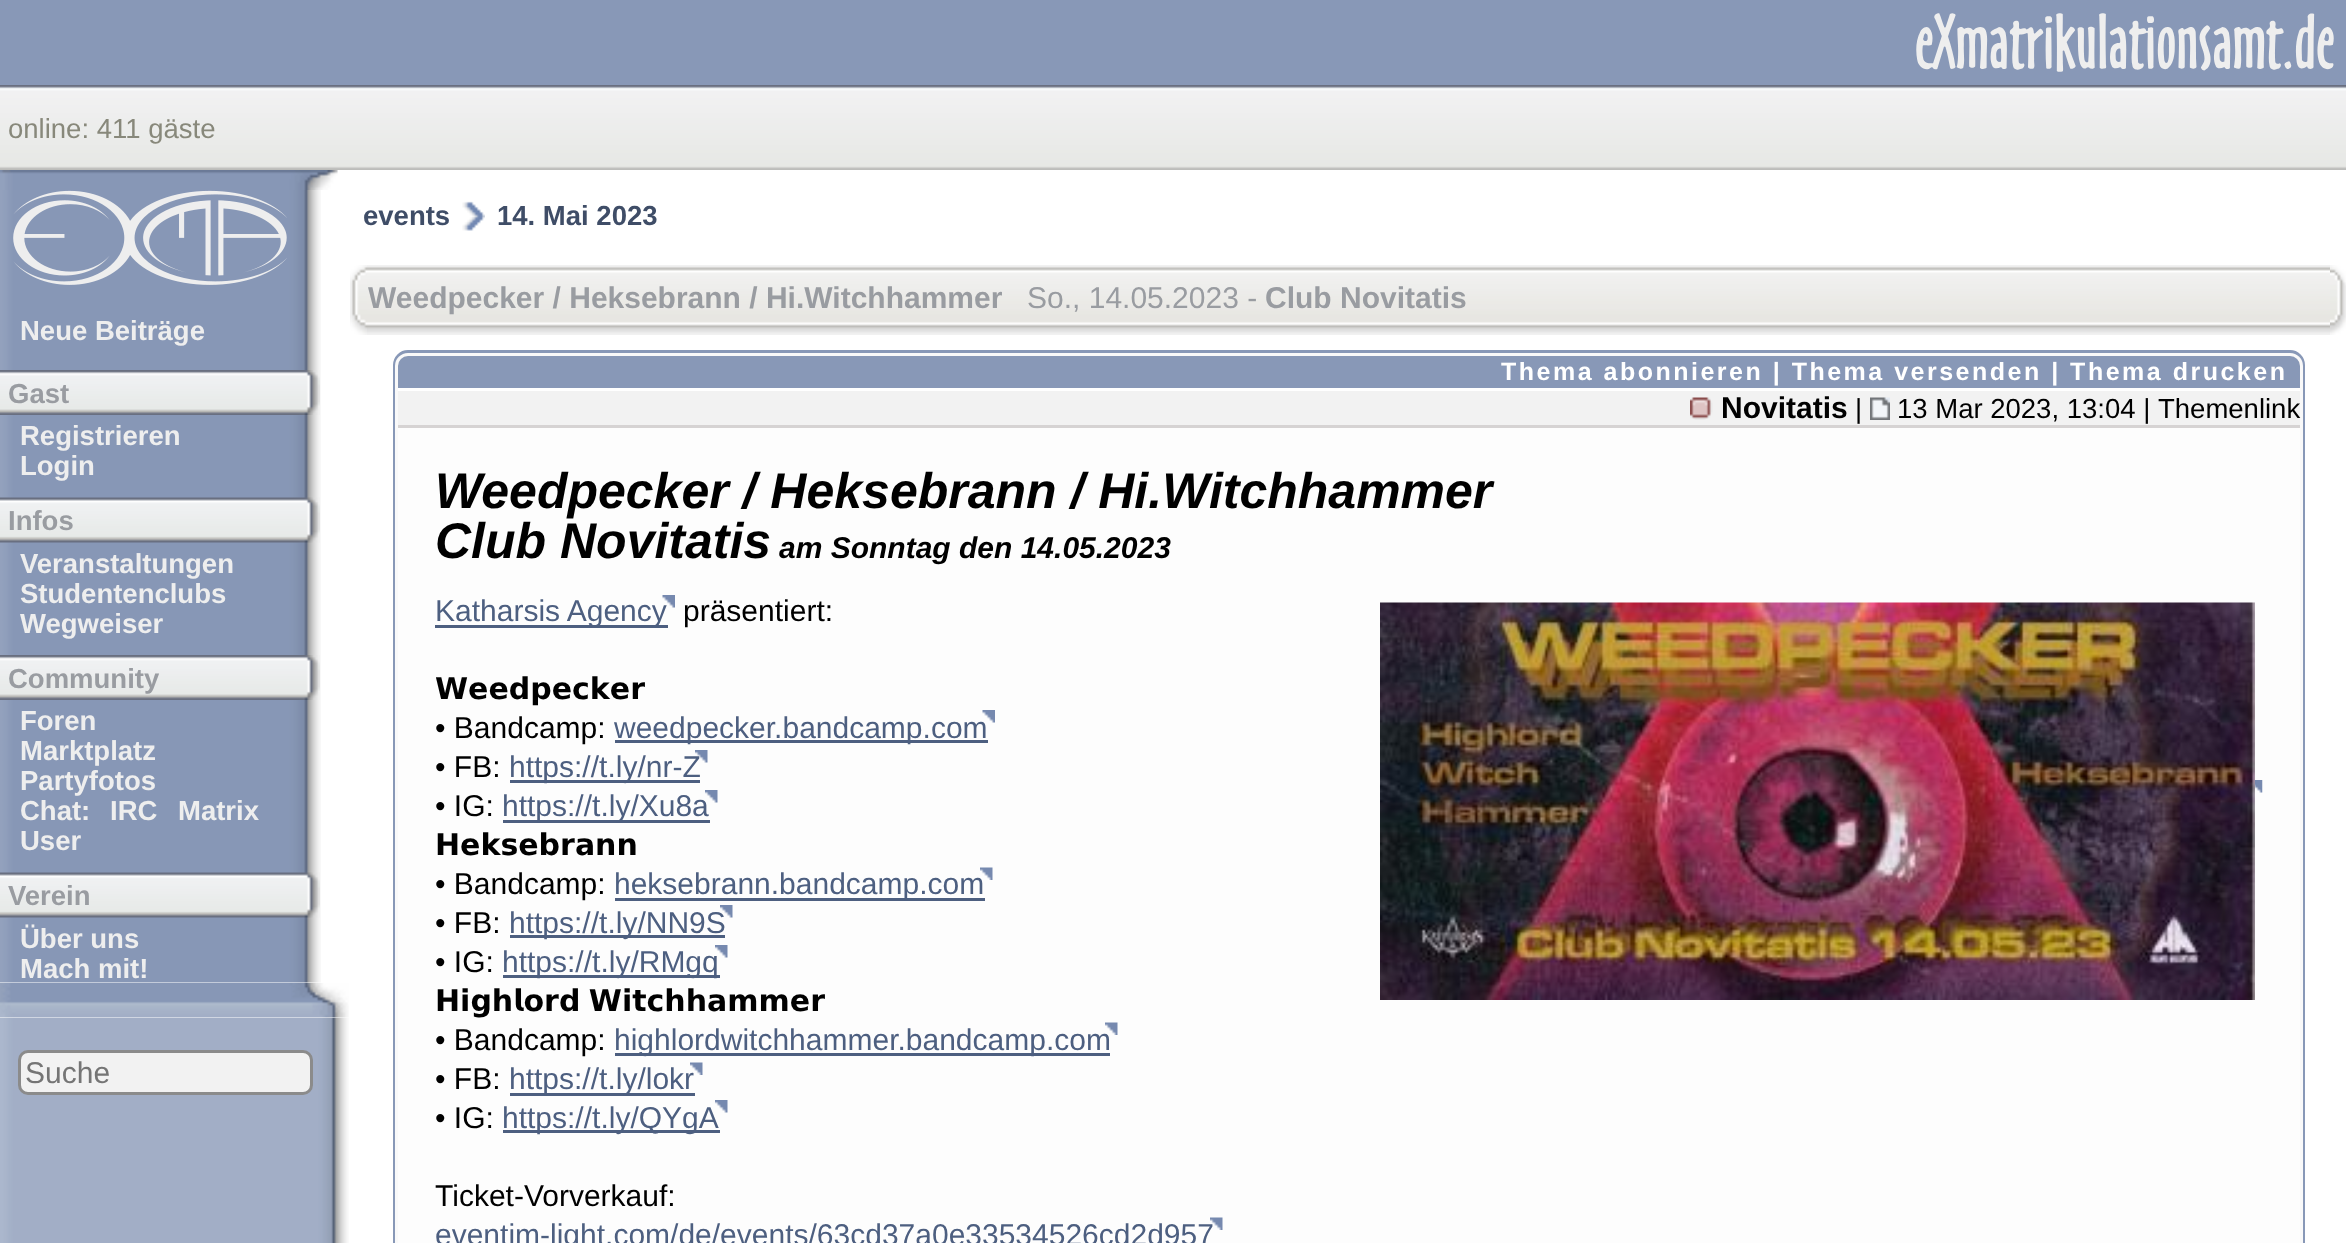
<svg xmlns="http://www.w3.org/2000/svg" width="2346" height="1243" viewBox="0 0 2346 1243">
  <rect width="100%" height="100%" fill="#ffffff"/>
  <rect x="0" y="0" width="2346" height="85" fill="#8898b7"/>
  <image x="1916" y="13" width="418" height="59" href="img1.png"/>
  <image x="0" y="85" width="2346" height="85" href="img2.png"/>
  <text x="8" y="138" font-family="Liberation Sans" font-size="27.5" fill="#88887b">online: 411 gäste</text>
  <image x="0" y="1018" width="349" height="225" href="img3.png"/>
  <image x="0" y="190" width="321" height="793" href="img4.png"/>
  <image x="0" y="170" width="338" height="20" href="img5.png"/>
  <image x="13" y="190" width="274" height="95" href="img6.png"/>
  <text x="20" y="340" font-family="Liberation Sans" font-size="27.5" font-weight="bold" fill="#eeeeee">Neue Beiträge</text>
  <image x="0" y="370" width="320" height="45" href="img7.png"/>
  <text x="8" y="403" font-family="Liberation Sans" font-size="27.5" font-weight="bold" fill="#999ca1">Gast</text>
  <text x="20" y="445" font-family="Liberation Sans" font-size="27.5" font-weight="bold" fill="#eeeeee">Registrieren</text>
  <text x="20" y="475" font-family="Liberation Sans" font-size="27.5" font-weight="bold" fill="#eeeeee">Login</text>
  <image x="0" y="497" width="320" height="46" href="img8.png"/>
  <text x="8" y="530" font-family="Liberation Sans" font-size="27.5" font-weight="bold" fill="#999ca1">Infos</text>
  <text x="20" y="573" font-family="Liberation Sans" font-size="27.5" font-weight="bold" fill="#eeeeee">Veranstaltungen</text>
  <text x="20" y="603" font-family="Liberation Sans" font-size="27.5" font-weight="bold" fill="#eeeeee">Studentenclubs</text>
  <text x="20" y="633" font-family="Liberation Sans" font-size="27.5" font-weight="bold" fill="#eeeeee">Wegweiser</text>
  <image x="0" y="655" width="320" height="45" href="img7.png"/>
  <text x="8" y="688" font-family="Liberation Sans" font-size="27.5" font-weight="bold" fill="#999ca1">Community</text>
  <text x="20" y="730" font-family="Liberation Sans" font-size="27.5" font-weight="bold" fill="#eeeeee">Foren</text>
  <text x="20" y="760" font-family="Liberation Sans" font-size="27.5" font-weight="bold" fill="#eeeeee">Marktplatz</text>
  <text x="20" y="790" font-family="Liberation Sans" font-size="27.5" font-weight="bold" fill="#eeeeee">Partyfotos</text>
  <text x="20" y="820" font-family="Liberation Sans" font-size="27.5" font-weight="bold" fill="#eeeeee">Chat:</text>
  <text x="110" y="820" font-family="Liberation Sans" font-size="27.5" font-weight="bold" fill="#eeeeee">IRC</text>
  <text x="178" y="820" font-family="Liberation Sans" font-size="27.5" font-weight="bold" fill="#eeeeee">Matrix</text>
  <text x="20" y="850" font-family="Liberation Sans" font-size="27.5" font-weight="bold" fill="#eeeeee">User</text>
  <image x="0" y="872" width="320" height="46" href="img8.png"/>
  <text x="8" y="905" font-family="Liberation Sans" font-size="27.5" font-weight="bold" fill="#999ca1">Verein</text>
  <text x="20" y="948" font-family="Liberation Sans" font-size="27.5" font-weight="bold" fill="#eeeeee">Über uns</text>
  <text x="20" y="978" font-family="Liberation Sans" font-size="27.5" font-weight="bold" fill="#eeeeee">Mach mit!</text>
  <image x="0" y="983" width="349" height="35" href="img9.png"/>
  <rect x="19.5" y="1051.5" width="292" height="42" rx="8.5" fill="#f2f2f2" stroke="#8b8b8b" stroke-width="3"/>
  <text x="25" y="1083" font-family="Liberation Sans" font-size="30" fill="#757575">Suche</text>
  <text x="363" y="225" font-family="Liberation Sans" font-size="27.5" font-weight="bold" fill="#3f4d67">events</text>
  <image x="462" y="201" width="23" height="30" href="img10.png"/>
  <text x="497" y="225" font-family="Liberation Sans" font-size="27.5" font-weight="bold" fill="#3f4d67">14. Mai 2023</text>
  <image x="367" y="265" width="1963" height="70" href="img11.png"/>
  <image x="350" y="265" width="17" height="70" href="img12.png"/>
  <text x="368" y="308" font-family="Liberation Sans" font-size="30" font-weight="bold" fill="#999ca1">Weedpecker / Heksebrann / Hi.Witchhammer</text>
  <text x="1027" y="308" font-family="Liberation Sans" font-size="30" fill="#999ca1">So., 14.05.2023 -</text>
  <text x="1265" y="308" font-family="Liberation Sans" font-size="30" font-weight="bold" fill="#999ca1">Club Novitatis</text>
  <image x="2330" y="265" width="16" height="70" href="img13.png"/>
  <rect x="394.5" y="351.5" width="1909" height="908" rx="13.5" fill="#8898b7" stroke="#8898b7" stroke-width="3"/>
  <rect x="396.5" y="354.5" width="1905" height="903" rx="11.5" fill="none" stroke="#f9f9f9" stroke-width="3"/>
  <text x="1501" y="380" font-family="Liberation Sans" font-size="25" font-weight="bold" letter-spacing="2.5" fill="#ffffff">Thema abonnieren | Thema versenden | Thema drucken</text>
  <rect x="398" y="391" width="1902" height="34" fill="#f2f2f2"/>
  <rect x="398" y="388" width="1902" height="3" fill="#ffffff"/>
  <rect x="398" y="425" width="1902" height="3" fill="#d6d3d3"/>
  <image x="1690" y="397" width="23" height="23" href="img14.png"/>
  <text x="1721" y="418" font-family="Liberation Sans" font-size="30" font-weight="bold" fill="#000000">Novitatis</text>
  <text x="1855" y="418" font-family="Liberation Sans" font-size="27.5" fill="#000000">|</text>
  <image x="1870" y="397" width="20" height="23" href="img15.png"/>
  <text x="1897" y="418" font-family="Liberation Sans" font-size="27.5" fill="#000000">13 Mar 2023, 13:04 |</text>
  <text x="2158" y="418" font-family="Liberation Sans" font-size="27.5" fill="#000000">Themenlink</text>
  <rect x="398" y="428" width="1902" height="815" fill="#fdfdfd"/>
  <text x="435" y="508" font-family="Liberation Sans" font-size="50" font-weight="bold" font-style="italic" fill="#000000">Weedpecker / Heksebrann / Hi.Witchhammer</text>
  <text x="435" y="558" font-family="Liberation Sans" font-size="50" font-weight="bold" font-style="italic" fill="#000000">Club Novitatis</text>
  <text x="779" y="558" font-family="Liberation Sans" font-size="30" font-weight="bold" font-style="italic" fill="#000000">am Sonntag den 14.05.2023</text>
  <rect x="435" y="625" width="233" height="3" fill="#4d5f80"/>
  <image x="662" y="595" width="13" height="13" href="img16.png"/>
  <text x="435" y="621" font-family="Liberation Sans" font-size="30" fill="#4d5f80">Katharsis Agency</text>
  <text x="683" y="621" font-family="Liberation Sans" font-size="30" fill="#000000">präsentiert:</text>
  <text x="435" y="699" font-family="DejaVu Sans" font-size="30" font-weight="bold" fill="#000000">𝗪𝗲𝗲𝗱𝗽𝗲𝗰𝗸𝗲𝗿</text>
  <text x="435" y="738" font-family="Liberation Sans" font-size="30" fill="#000000">• Bandcamp:</text>
  <rect x="615" y="740" width="373" height="3" fill="#4d5f80"/>
  <image x="982" y="710" width="13" height="13" href="img17.png"/>
  <text x="614" y="738" font-family="Liberation Sans" font-size="30" fill="#4d5f80">weedpecker.bandcamp.com</text>
  <text x="435" y="777" font-family="Liberation Sans" font-size="30" fill="#000000">• FB:</text>
  <rect x="510" y="780" width="190" height="3" fill="#4d5f80"/>
  <image x="695" y="750" width="13" height="13" href="img18.png"/>
  <text x="509" y="777" font-family="Liberation Sans" font-size="30" fill="#4d5f80">https://t.ly/nr-Z</text>
  <text x="435" y="816" font-family="Liberation Sans" font-size="30" fill="#000000">• IG:</text>
  <rect x="503" y="820" width="207" height="3" fill="#4d5f80"/>
  <image x="705" y="790" width="13" height="13" href="img18.png"/>
  <text x="502" y="816" font-family="Liberation Sans" font-size="30" fill="#4d5f80">https://t.ly/Xu8a</text>
  <text x="435" y="855" font-family="DejaVu Sans" font-size="30" font-weight="bold" fill="#000000">𝗛𝗲𝗸𝘀𝗲𝗯𝗿𝗮𝗻𝗻</text>
  <text x="435" y="894" font-family="Liberation Sans" font-size="30" fill="#000000">• Bandcamp:</text>
  <rect x="615" y="898" width="370" height="3" fill="#4d5f80"/>
  <image x="980" y="867" width="13" height="13" href="img19.png"/>
  <text x="614" y="894" font-family="Liberation Sans" font-size="30" fill="#4d5f80">heksebrann.bandcamp.com</text>
  <text x="435" y="933" font-family="Liberation Sans" font-size="30" fill="#000000">• FB:</text>
  <rect x="510" y="935" width="215" height="3" fill="#4d5f80"/>
  <image x="720" y="905" width="13" height="13" href="img18.png"/>
  <text x="509" y="933" font-family="Liberation Sans" font-size="30" fill="#4d5f80">https://t.ly/NN9S</text>
  <text x="435" y="972" font-family="Liberation Sans" font-size="30" fill="#000000">• IG:</text>
  <rect x="503" y="975" width="217" height="3" fill="#4d5f80"/>
  <image x="715" y="945" width="13" height="13" href="img18.png"/>
  <text x="502" y="972" font-family="Liberation Sans" font-size="30" fill="#4d5f80">https://t.ly/RMgq</text>
  <text x="435" y="1011" word-spacing="-2" font-family="DejaVu Sans" font-size="30" font-weight="bold" fill="#000000">𝗛𝗶𝗴𝗵𝗹𝗼𝗿𝗱 𝗪𝗶𝘁𝗰𝗵𝗵𝗮𝗺𝗺𝗲𝗿</text>
  <text x="435" y="1050" font-family="Liberation Sans" font-size="30" fill="#000000">• Bandcamp:</text>
  <rect x="615" y="1053" width="495" height="3" fill="#4d5f80"/>
  <image x="1105" y="1022" width="13" height="13" href="img20.png"/>
  <text x="614" y="1050" font-family="Liberation Sans" font-size="30" fill="#4d5f80">highlordwitchhammer.bandcamp.com</text>
  <text x="435" y="1089" font-family="Liberation Sans" font-size="30" fill="#000000">• FB:</text>
  <rect x="510" y="1093" width="185" height="3" fill="#4d5f80"/>
  <image x="690" y="1062" width="13" height="13" href="img19.png"/>
  <text x="509" y="1089" font-family="Liberation Sans" font-size="30" fill="#4d5f80">https://t.ly/lokr</text>
  <text x="435" y="1128" font-family="Liberation Sans" font-size="30" fill="#000000">• IG:</text>
  <rect x="503" y="1130" width="217" height="3" fill="#4d5f80"/>
  <image x="715" y="1100" width="13" height="13" href="img18.png"/>
  <text x="502" y="1128" font-family="Liberation Sans" font-size="30" fill="#4d5f80">https://t.ly/QYgA</text>
  <text x="435" y="1206" font-family="Liberation Sans" font-size="30" fill="#000000">Ticket-Vorverkauf:</text>
  <image x="1210" y="1217" width="13" height="13" href="img21.png"/>
  <text x="435" y="1245" font-family="Liberation Sans" font-size="30" fill="#4d5f80">eventim-light.com/de/events/63cd37a0e33534526cd2d957</text>
  <image x="1380" y="602" width="875" height="398" href="img22.png"/>
  <image x="2255" y="780" width="8" height="13" href="img23.png"/>
</svg>
